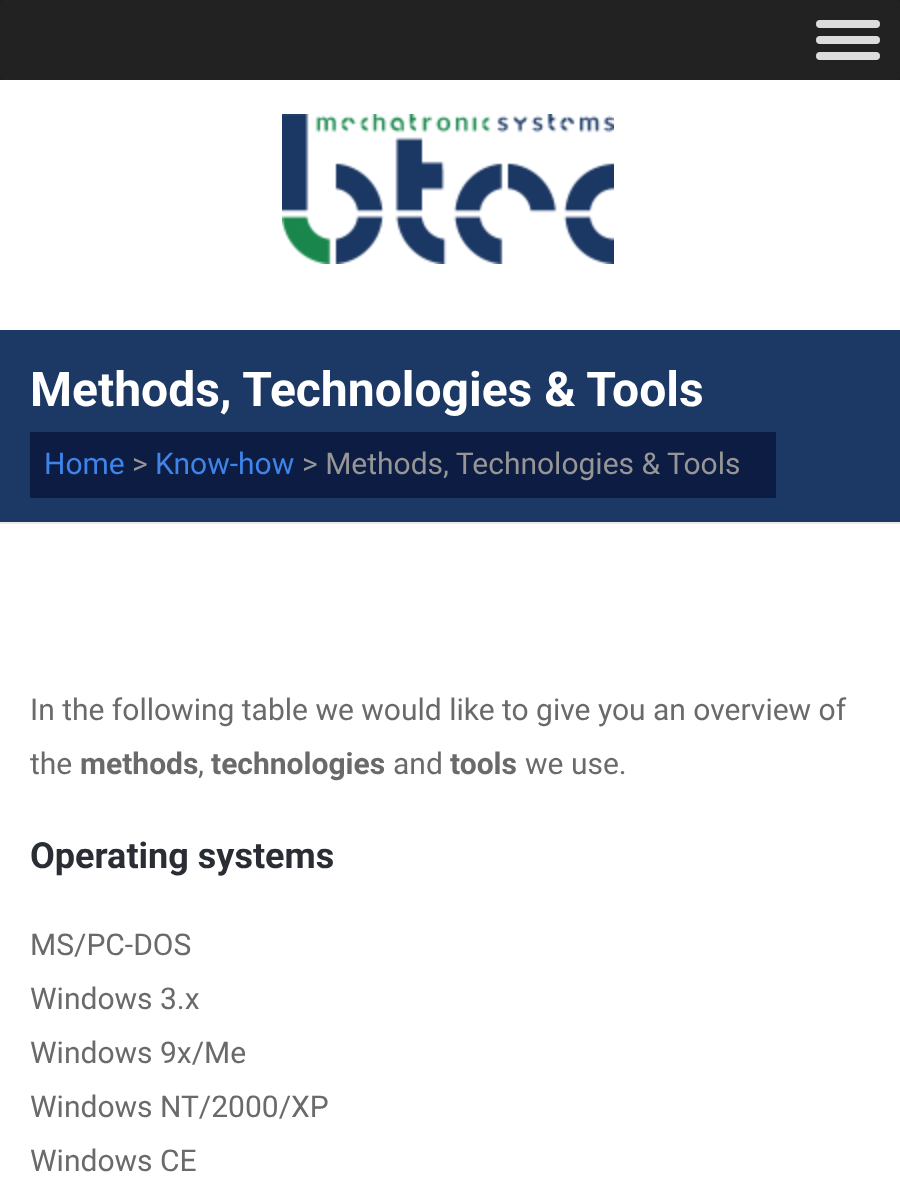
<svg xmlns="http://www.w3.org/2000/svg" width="900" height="1189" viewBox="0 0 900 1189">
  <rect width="100%" height="100%" fill="#ffffff"/>
  <rect x="0" y="0" width="900" height="80" fill="#1e1e1e"/>
  <rect x="0" y="0" width="900" height="80" rx="4" fill="#222222"/>
  <rect x="816" y="20" width="64" height="8" rx="4" fill="#dddddd"/>
  <rect x="816" y="36" width="64" height="8" rx="4" fill="#dddddd"/>
  <rect x="816" y="52" width="64" height="8" rx="4" fill="#dddddd"/>
  <image x="282" y="114" width="332" height="150" href="img1.png"/>
  <rect x="0" y="330" width="900" height="192" fill="#1b3964"/>
  <rect x="0" y="522" width="900" height="2" fill="#eaeaea"/>
  <text x="30" y="406" font-family="Roboto" font-size="48" font-weight="bold" fill="#ffffff">Methods, Technologies &amp; Tools</text>
  <rect x="30" y="432" width="746" height="66" fill="#0d1c43"/>
  <text x="44" y="474" font-family="Roboto" font-size="30" fill="#3e84e9">Home</text>
  <text x="132" y="474" font-family="Roboto" font-size="30" fill="#969696">&gt;</text>
  <text x="155" y="474" font-family="Roboto" font-size="30" fill="#3e84e9">Know-how</text>
  <text x="302" y="474" font-family="Roboto" font-size="30" fill="#969696">&gt; Methods, Technologies &amp; Tools</text>
  <text x="30" y="720" font-family="Roboto" font-size="30" fill="#6a6a6a">In the following table we would like to give you an overview of</text>
  <text x="30" y="774" font-family="Roboto" font-size="30" fill="#6a6a6a">the</text>
  <text x="80" y="774" font-family="Roboto" font-size="30" font-weight="bold" fill="#6a6a6a">methods</text>
  <text x="198" y="774" font-family="Roboto" font-size="30" fill="#6a6a6a">,</text>
  <text x="211" y="774" font-family="Roboto" font-size="30" font-weight="bold" fill="#6a6a6a">technologies</text>
  <text x="393" y="774" font-family="Roboto" font-size="30" fill="#6a6a6a">and</text>
  <text x="450" y="774" font-family="Roboto" font-size="30" font-weight="bold" fill="#6a6a6a">tools</text>
  <text x="525" y="774" font-family="Roboto" font-size="30" fill="#6a6a6a">we use.</text>
  <text x="30" y="868" font-family="Roboto" font-size="36" font-weight="bold" fill="#2a2e34">Operating systems</text>
  <text x="30" y="955" font-family="Roboto" font-size="30" fill="#6a6a6a">MS/PC-DOS</text>
  <text x="30" y="1009" font-family="Roboto" font-size="30" fill="#6a6a6a">Windows 3.x</text>
  <text x="30" y="1063" font-family="Roboto" font-size="30" fill="#6a6a6a">Windows 9x/Me</text>
  <text x="30" y="1117" font-family="Roboto" font-size="30" fill="#6a6a6a">Windows NT/2000/XP</text>
  <text x="30" y="1171" font-family="Roboto" font-size="30" fill="#6a6a6a">Windows CE</text>
</svg>
